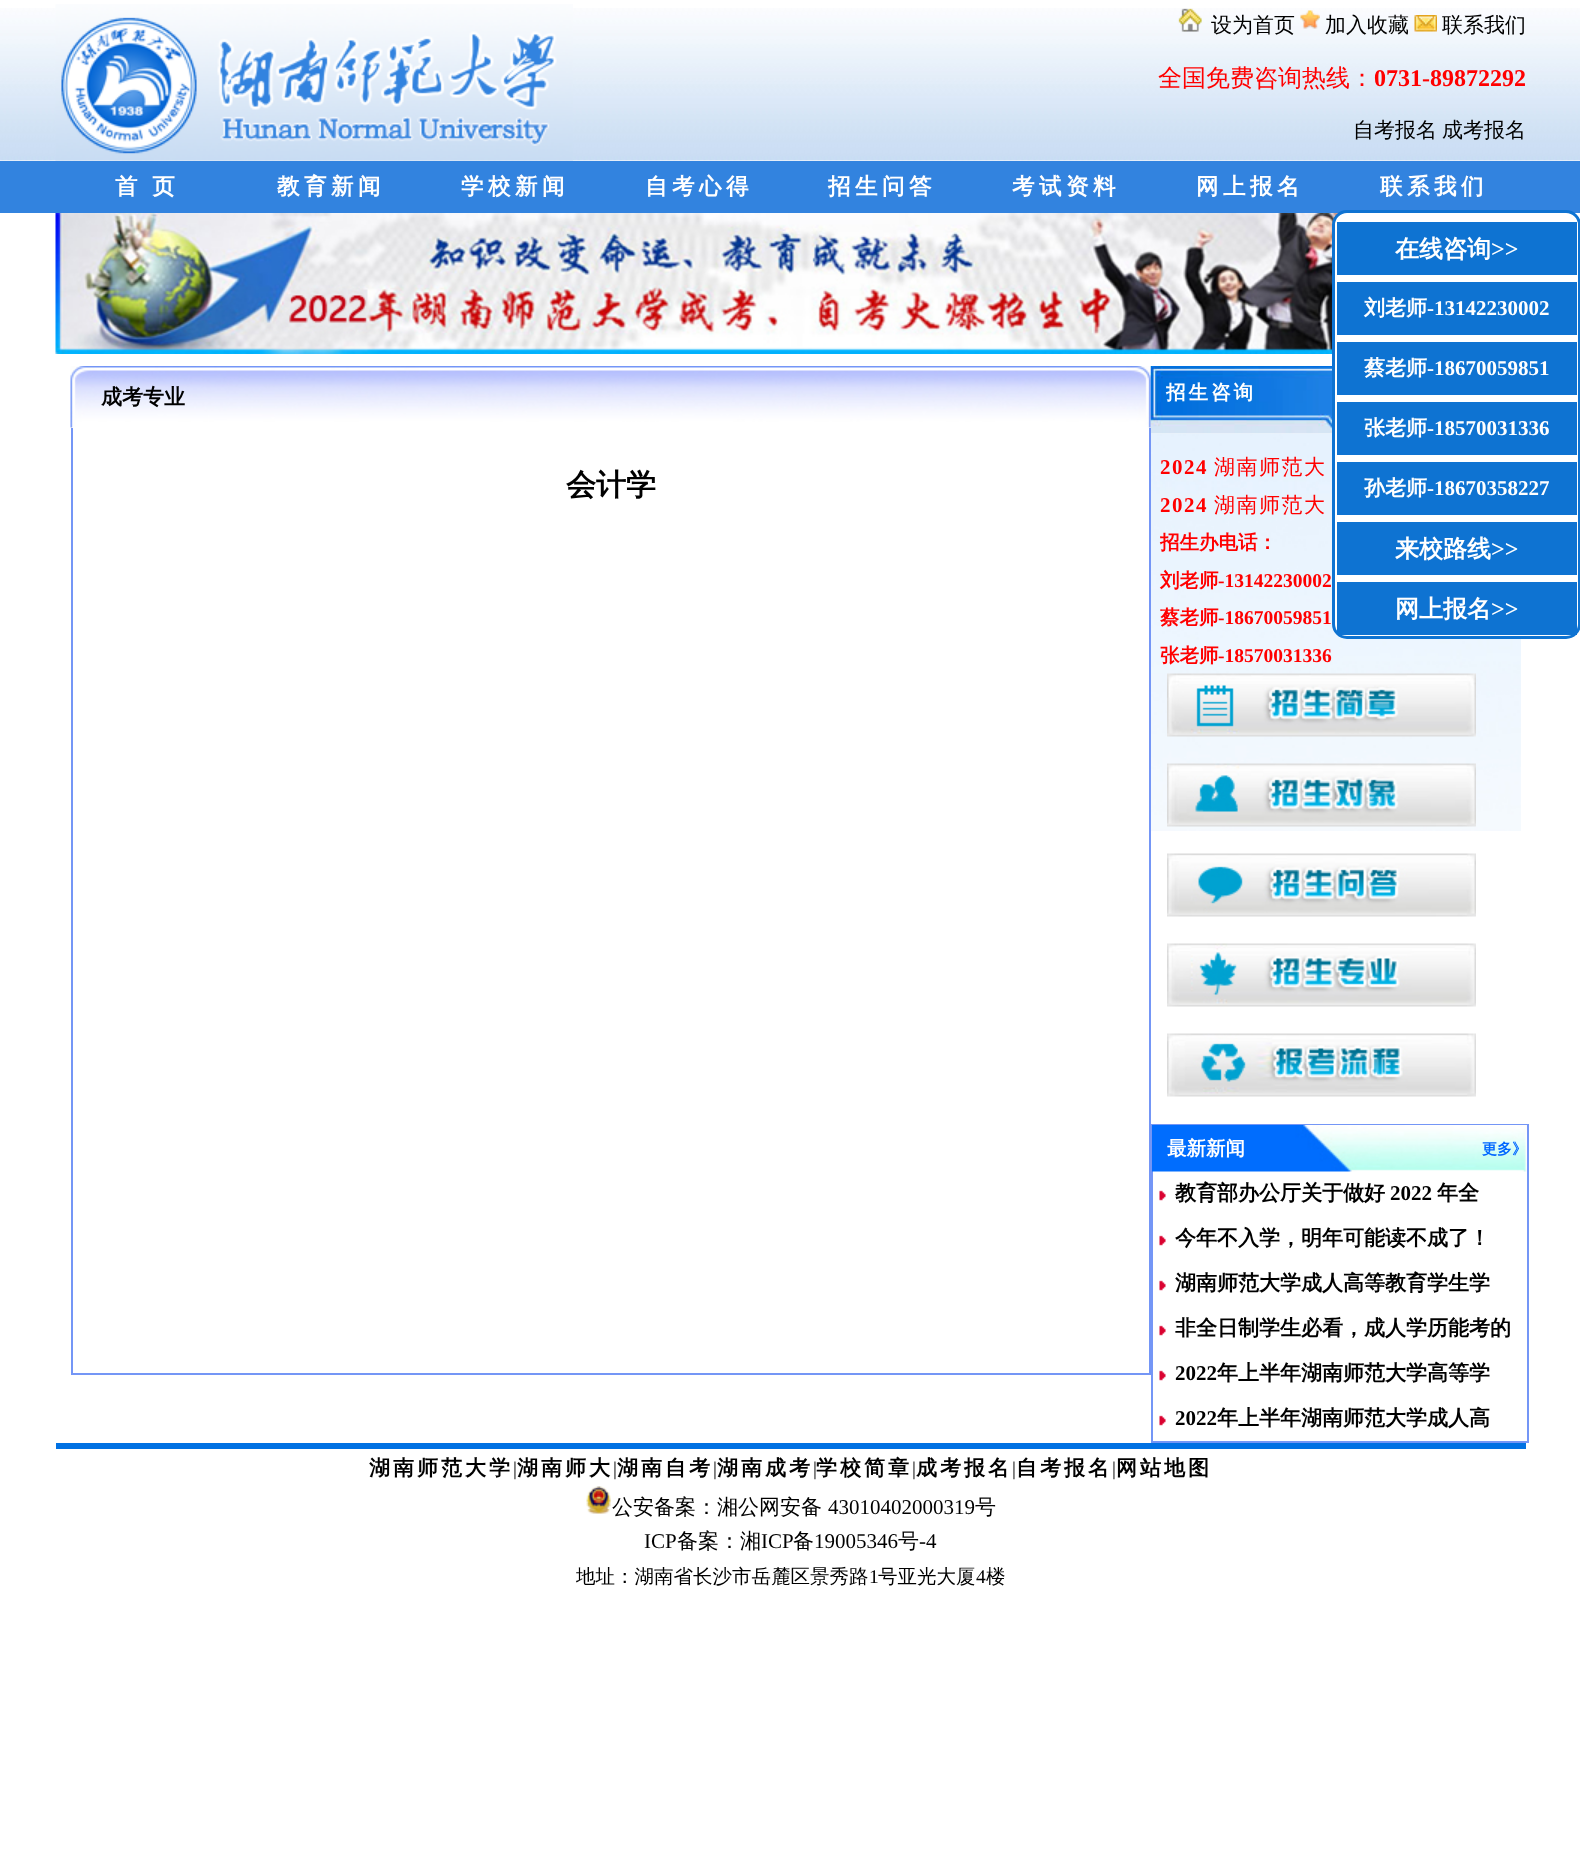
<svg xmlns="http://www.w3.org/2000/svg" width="1580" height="1875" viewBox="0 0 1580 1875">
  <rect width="100%" height="100%" fill="#ffffff"/>
  <image x="0" y="8" width="1580" height="153" href="img1.png"/>
  <image x="55" y="4" width="518" height="157" href="img2.png"/>
  <image x="1178" y="8" width="24" height="24" href="img3.png"/>
  <text x="1211" y="32" font-family="WenQuanYi Zen Hei" font-size="21" font-weight="500" fill="#000000">设为首页</text>
  <image x="1300" y="10" width="20" height="19" href="img4.png"/>
  <text x="1325" y="32" font-family="WenQuanYi Zen Hei" font-size="21" font-weight="500" fill="#000000">加入收藏</text>
  <image x="1414" y="15" width="23" height="17" href="img5.png"/>
  <text x="1442" y="32" font-family="WenQuanYi Zen Hei" font-size="21" font-weight="500" fill="#000000">联系我们</text>
  <text x="1158" y="86" font-family="WenQuanYi Zen Hei" font-size="24" font-weight="500" fill="#ff0000">全国免费咨询热线：</text>
  <text x="1374" y="86" font-family="Liberation Serif" font-size="24" font-weight="bold" fill="#ff0000">0731-89872292</text>
  <text x="1353" y="137" font-family="WenQuanYi Zen Hei" font-size="21" font-weight="500" fill="#000000">自考报名</text>
  <text x="1442" y="137" font-family="WenQuanYi Zen Hei" font-size="21" font-weight="500" fill="#000000">成考报名</text>
  <rect x="0" y="161" width="1580" height="52" fill="#3283df"/>
  <text x="115" y="194" word-spacing="-1" font-family="WenQuanYi Zen Hei" font-size="22.5" font-weight="bold" letter-spacing="4.5" fill="#ffffff">首 页</text>
  <text x="277" y="194" font-family="WenQuanYi Zen Hei" font-size="22.5" font-weight="bold" letter-spacing="4.5" fill="#ffffff">教育新闻</text>
  <text x="461" y="194" font-family="WenQuanYi Zen Hei" font-size="22.5" font-weight="bold" letter-spacing="4.5" fill="#ffffff">学校新闻</text>
  <text x="645" y="194" font-family="WenQuanYi Zen Hei" font-size="22.5" font-weight="bold" letter-spacing="4.5" fill="#ffffff">自考心得</text>
  <text x="828" y="194" font-family="WenQuanYi Zen Hei" font-size="22.5" font-weight="bold" letter-spacing="4.5" fill="#ffffff">招生问答</text>
  <text x="1012" y="194" font-family="WenQuanYi Zen Hei" font-size="22.5" font-weight="bold" letter-spacing="4.5" fill="#ffffff">考试资料</text>
  <text x="1196" y="194" font-family="WenQuanYi Zen Hei" font-size="22.5" font-weight="bold" letter-spacing="4.5" fill="#ffffff">网上报名</text>
  <text x="1380" y="194" font-family="WenQuanYi Zen Hei" font-size="22.5" font-weight="bold" letter-spacing="4.5" fill="#ffffff">联系我们</text>
  <image x="55" y="213" width="1283" height="141" href="img6.png"/>
  <image x="1150" y="366" width="182" height="68" href="img8.png"/>
  <image x="1151" y="433" width="370" height="398" href="img9.png"/>
  <rect x="1333.5" y="211.5" width="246" height="426" rx="13.5" fill="#ffffff" stroke="#0e73d2" stroke-width="3"/>
  <rect x="1337" y="222" width="240" height="53" fill="#0e73d2"/>
  <text x="1395" y="257" font-family="WenQuanYi Zen Hei" font-size="24" font-weight="bold" fill="#ffffff">在线咨询</text>
  <text x="1491" y="257" font-family="Liberation Serif" font-size="24" font-weight="bold" fill="#ffffff">&gt;&gt;</text>
  <rect x="1337" y="282" width="240" height="53" fill="#0e73d2"/>
  <text x="1364" y="315" font-family="WenQuanYi Zen Hei" font-size="21" font-weight="bold" fill="#ffffff">刘老师</text>
  <text x="1427" y="315" font-family="Liberation Serif" font-size="21" font-weight="bold" fill="#ffffff">-13142230002</text>
  <rect x="1337" y="342" width="240" height="53" fill="#0e73d2"/>
  <text x="1364" y="375" font-family="WenQuanYi Zen Hei" font-size="21" font-weight="bold" fill="#ffffff">蔡老师</text>
  <text x="1427" y="375" font-family="Liberation Serif" font-size="21" font-weight="bold" fill="#ffffff">-18670059851</text>
  <rect x="1337" y="402" width="240" height="53" fill="#0e73d2"/>
  <text x="1364" y="435" font-family="WenQuanYi Zen Hei" font-size="21" font-weight="bold" fill="#ffffff">张老师</text>
  <text x="1427" y="435" font-family="Liberation Serif" font-size="21" font-weight="bold" fill="#ffffff">-18570031336</text>
  <rect x="1337" y="462" width="240" height="53" fill="#0e73d2"/>
  <text x="1364" y="495" font-family="WenQuanYi Zen Hei" font-size="21" font-weight="bold" fill="#ffffff">孙老师</text>
  <text x="1427" y="495" font-family="Liberation Serif" font-size="21" font-weight="bold" fill="#ffffff">-18670358227</text>
  <rect x="1337" y="522" width="240" height="53" fill="#0e73d2"/>
  <text x="1395" y="557" font-family="WenQuanYi Zen Hei" font-size="24" font-weight="bold" fill="#ffffff">来校路线</text>
  <text x="1491" y="557" font-family="Liberation Serif" font-size="24" font-weight="bold" fill="#ffffff">&gt;&gt;</text>
  <rect x="1337" y="582" width="240" height="53" fill="#0e73d2"/>
  <text x="1395" y="617" font-family="WenQuanYi Zen Hei" font-size="24" font-weight="bold" fill="#ffffff">网上报名</text>
  <text x="1491" y="617" font-family="Liberation Serif" font-size="24" font-weight="bold" fill="#ffffff">&gt;&gt;</text>
  <image x="70" y="366" width="1081" height="62" href="img7.png"/>
  <text x="101" y="404" font-family="WenQuanYi Zen Hei" font-size="21" font-weight="bold" fill="#000000">成考专业</text>
  <rect x="1149" y="428" width="2" height="946" fill="#7496f6"/>
  <rect x="71" y="1373" width="1080" height="2" fill="#7496f6"/>
  <rect x="71" y="428" width="2" height="946" fill="#7496f6"/>
  <text x="566" y="495" font-family="WenQuanYi Zen Hei" font-size="30" font-weight="bold" fill="#000000">会计学</text>
  <text x="1166" y="399" font-family="WenQuanYi Zen Hei" font-size="19.5" font-weight="bold" letter-spacing="3" fill="#ffffff">招生咨询</text>
  <text x="1160" y="474" font-family="Liberation Serif" font-size="21" font-weight="bold" letter-spacing="1.5" fill="#ff0000">2024</text>
  <text x="1214" y="474" font-family="WenQuanYi Zen Hei" font-size="21" font-weight="500" letter-spacing="1.5" fill="#ff0000">湖南师范大</text>
  <text x="1160" y="512" font-family="Liberation Serif" font-size="21" font-weight="bold" letter-spacing="1.5" fill="#ff0000">2024</text>
  <text x="1214" y="512" font-family="WenQuanYi Zen Hei" font-size="21" font-weight="500" letter-spacing="1.5" fill="#ff0000">湖南师范大</text>
  <text x="1160" y="549" font-family="WenQuanYi Zen Hei" font-size="19.5" font-weight="bold" fill="#ff0000">招生办电话：</text>
  <text x="1160" y="587" font-family="WenQuanYi Zen Hei" font-size="19.5" font-weight="bold" fill="#ff0000">刘老师</text>
  <text x="1218" y="587" font-family="Liberation Serif" font-size="19.5" font-weight="bold" fill="#ff0000">-13142230002</text>
  <text x="1160" y="624" font-family="WenQuanYi Zen Hei" font-size="19.5" font-weight="bold" fill="#ff0000">蔡老师</text>
  <text x="1218" y="624" font-family="Liberation Serif" font-size="19.5" font-weight="bold" fill="#ff0000">-18670059851</text>
  <text x="1160" y="662" font-family="WenQuanYi Zen Hei" font-size="19.5" font-weight="bold" fill="#ff0000">张老师</text>
  <text x="1218" y="662" font-family="Liberation Serif" font-size="19.5" font-weight="bold" fill="#ff0000">-18570031336</text>
  <image x="1167" y="673" width="309" height="64" href="img10.png"/>
  <image x="1167" y="763" width="309" height="64" href="img11.png"/>
  <image x="1167" y="853" width="309" height="64" href="img12.png"/>
  <image x="1167" y="943" width="309" height="64" href="img13.png"/>
  <image x="1167" y="1033" width="309" height="64" href="img14.png"/>
  <rect x="1152" y="1125" width="376" height="317" fill="none" stroke="#7496f6" stroke-width="2"/>
  <image x="1152" y="1125" width="375" height="47" href="img15.png"/>
  <text x="1167" y="1155" font-family="WenQuanYi Zen Hei" font-size="19.5" font-weight="bold" fill="#ffffff">最新新闻</text>
  <text x="1482" y="1154" font-family="WenQuanYi Zen Hei" font-size="15" font-weight="bold" fill="#0066ff">更多》</text>
  <image x="1159" y="1190" width="7" height="11" href="img16.png"/>
  <text x="1175" y="1200" font-family="WenQuanYi Zen Hei" font-size="21" font-weight="bold" fill="#000000">教育部办公厅关于做好</text>
  <text x="1390" y="1200" font-family="Liberation Serif" font-size="21" font-weight="bold" fill="#000000">2022</text>
  <text x="1437" y="1200" font-family="WenQuanYi Zen Hei" font-size="21" font-weight="bold" fill="#000000">年全</text>
  <image x="1159" y="1235" width="7" height="11" href="img16.png"/>
  <text x="1175" y="1245" font-family="WenQuanYi Zen Hei" font-size="21" font-weight="bold" fill="#000000">今年不入学，明年可能读不成了！</text>
  <image x="1159" y="1280" width="7" height="11" href="img16.png"/>
  <text x="1175" y="1290" font-family="WenQuanYi Zen Hei" font-size="21" font-weight="bold" fill="#000000">湖南师范大学成人高等教育学生学</text>
  <image x="1159" y="1325" width="7" height="11" href="img16.png"/>
  <text x="1175" y="1335" font-family="WenQuanYi Zen Hei" font-size="21" font-weight="bold" fill="#000000">非全日制学生必看，成人学历能考的</text>
  <image x="1159" y="1370" width="7" height="11" href="img16.png"/>
  <text x="1175" y="1380" font-family="Liberation Serif" font-size="21" font-weight="bold" fill="#000000">2022</text>
  <text x="1217" y="1380" font-family="WenQuanYi Zen Hei" font-size="21" font-weight="bold" fill="#000000">年上半年湖南师范大学高等学</text>
  <image x="1159" y="1415" width="7" height="11" href="img16.png"/>
  <text x="1175" y="1425" font-family="Liberation Serif" font-size="21" font-weight="bold" fill="#000000">2022</text>
  <text x="1217" y="1425" font-family="WenQuanYi Zen Hei" font-size="21" font-weight="bold" fill="#000000">年上半年湖南师范大学成人高</text>
  <rect x="56" y="1443" width="1470" height="6" fill="#0071e3"/>
  <text x="369" y="1475" font-family="WenQuanYi Zen Hei" font-size="21" font-weight="bold" letter-spacing="3" fill="#000000">湖南师范大学</text>
  <text x="513" y="1475" font-family="Liberation Serif" font-size="19.5" fill="#000000">|</text>
  <text x="517" y="1475" font-family="WenQuanYi Zen Hei" font-size="21" font-weight="bold" letter-spacing="3" fill="#000000">湖南师大</text>
  <text x="613" y="1475" font-family="Liberation Serif" font-size="19.5" fill="#000000">|</text>
  <text x="617" y="1475" font-family="WenQuanYi Zen Hei" font-size="21" font-weight="bold" letter-spacing="3" fill="#000000">湖南自考</text>
  <text x="713" y="1475" font-family="Liberation Serif" font-size="19.5" fill="#000000">|</text>
  <text x="717" y="1475" font-family="WenQuanYi Zen Hei" font-size="21" font-weight="bold" letter-spacing="3" fill="#000000">湖南成考</text>
  <text x="813" y="1475" font-family="Liberation Serif" font-size="19.5" fill="#000000">|</text>
  <text x="816" y="1475" font-family="WenQuanYi Zen Hei" font-size="21" font-weight="bold" letter-spacing="3" fill="#000000">学校简章</text>
  <text x="912" y="1475" font-family="Liberation Serif" font-size="19.5" fill="#000000">|</text>
  <text x="916" y="1475" font-family="WenQuanYi Zen Hei" font-size="21" font-weight="bold" letter-spacing="3" fill="#000000">成考报名</text>
  <text x="1012" y="1475" font-family="Liberation Serif" font-size="19.5" fill="#000000">|</text>
  <text x="1016" y="1475" font-family="WenQuanYi Zen Hei" font-size="21" font-weight="bold" letter-spacing="3" fill="#000000">自考报名</text>
  <text x="1112" y="1475" font-family="Liberation Serif" font-size="19.5" fill="#000000">|</text>
  <text x="1116" y="1475" font-family="WenQuanYi Zen Hei" font-size="21" font-weight="bold" letter-spacing="3" fill="#000000">网站地图</text>
  <image x="586" y="1486" width="25" height="28" href="img17.png"/>
  <text x="612" y="1514" font-family="WenQuanYi Zen Hei" font-size="21" font-weight="500" fill="#000000">公安备案：湘公网安备</text>
  <text x="828" y="1514" font-family="Liberation Serif" font-size="21" fill="#000000">43010402000319</text>
  <text x="975" y="1514" font-family="WenQuanYi Zen Hei" font-size="21" font-weight="500" fill="#000000">号</text>
  <text x="644" y="1548" font-family="Liberation Serif" font-size="21" fill="#000000">ICP</text>
  <text x="677" y="1548" font-family="WenQuanYi Zen Hei" font-size="21" font-weight="500" fill="#000000">备案：湘</text>
  <text x="761" y="1548" font-family="Liberation Serif" font-size="21" fill="#000000">ICP</text>
  <text x="793" y="1548" font-family="WenQuanYi Zen Hei" font-size="21" font-weight="500" fill="#000000">备</text>
  <text x="814" y="1548" font-family="Liberation Serif" font-size="21" fill="#000000">19005346</text>
  <text x="898" y="1548" font-family="WenQuanYi Zen Hei" font-size="21" font-weight="500" fill="#000000">号</text>
  <text x="919" y="1548" font-family="Liberation Serif" font-size="21" fill="#000000">-4</text>
  <text x="576" y="1583" font-family="WenQuanYi Zen Hei" font-size="19.5" font-weight="500" fill="#000000">地址：湖南省长沙市岳麓区景秀路</text>
  <text x="869" y="1583" font-family="Liberation Serif" font-size="19.5" fill="#000000">1</text>
  <text x="878" y="1583" font-family="WenQuanYi Zen Hei" font-size="19.5" font-weight="500" fill="#000000">号亚光大厦</text>
  <text x="976" y="1583" font-family="Liberation Serif" font-size="19.5" fill="#000000">4</text>
  <text x="986" y="1583" font-family="WenQuanYi Zen Hei" font-size="19.5" font-weight="500" fill="#000000">楼</text>
</svg>
